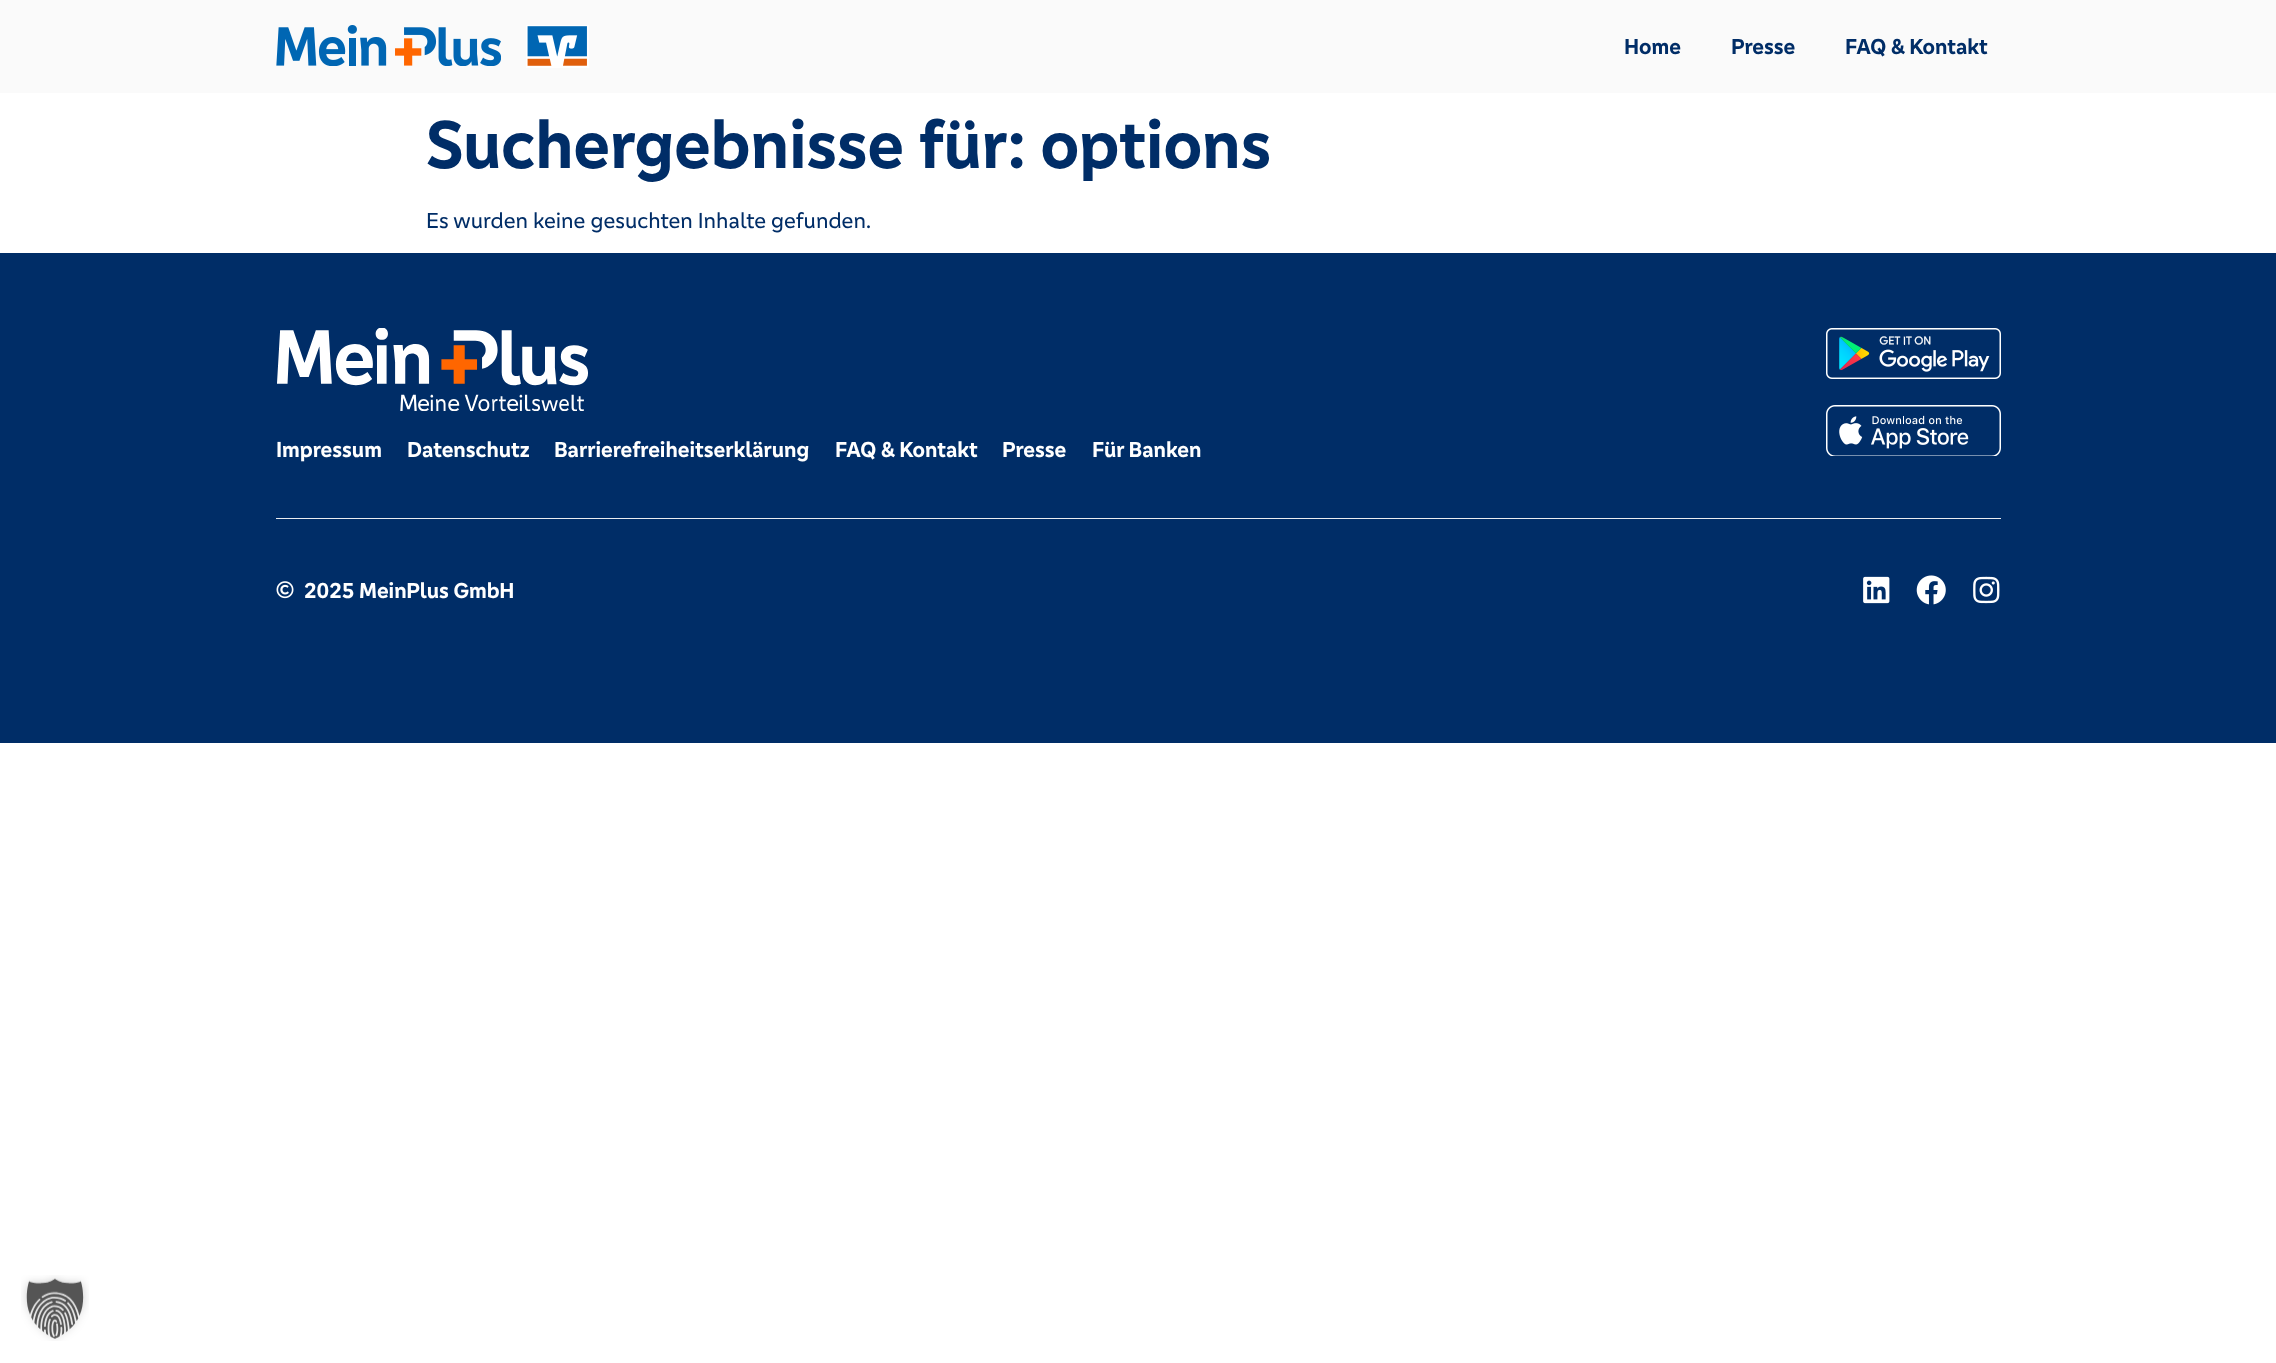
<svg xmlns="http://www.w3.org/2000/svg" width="2276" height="1363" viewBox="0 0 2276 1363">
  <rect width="100%" height="100%" fill="#ffffff"/>
  <rect x="0" y="0" width="2276" height="93" fill="#fafafa"/>
  <image x="276" y="25" width="225" height="41" href="img1.png"/>
  <image x="526" y="25" width="63" height="43" href="img2.png"/>
  <text x="1624" y="54" font-family="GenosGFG" font-size="22.5" font-weight="bold" fill="#002d67">Home</text>
  <text x="1731" y="54" font-family="GenosGFG" font-size="22.5" font-weight="bold" fill="#002d67">Presse</text>
  <text x="1845" y="54" font-family="GenosGFG" font-size="22.5" font-weight="bold" fill="#002d67">FAQ &amp; Kontakt</text>
  <text x="426" y="168" font-family="GenosGFG" font-size="70" font-weight="bold" fill="#002d67">Suchergebnisse für: options</text>
  <text x="426" y="228" font-family="GenosGFG" font-size="22.5" fill="#002d67">Es wurden keine gesuchten Inhalte gefunden.</text>
  <rect x="0" y="253" width="2276" height="490" fill="#002d67"/>
  <image x="277" y="328" width="311" height="83" href="img3.png"/>
  <text x="276" y="457" font-family="GenosGFG" font-size="22.5" font-weight="bold" fill="#ffffff">Impressum</text>
  <text x="407" y="457" font-family="GenosGFG" font-size="22.5" font-weight="bold" fill="#ffffff">Datenschutz</text>
  <text x="554" y="457" font-family="GenosGFG" font-size="22.5" font-weight="bold" fill="#ffffff">Barrierefreiheitserklärung</text>
  <text x="835" y="457" font-family="GenosGFG" font-size="22.5" font-weight="bold" fill="#ffffff">FAQ &amp; Kontakt</text>
  <text x="1002" y="457" font-family="GenosGFG" font-size="22.5" font-weight="bold" fill="#ffffff">Presse</text>
  <text x="1092" y="457" font-family="GenosGFG" font-size="22.5" font-weight="bold" fill="#ffffff">Für Banken</text>
  <image x="1826" y="328" width="175" height="51" href="img4.png"/>
  <image x="1826" y="405" width="175" height="51" href="img5.png"/>
  <rect x="276" y="518" width="1725" height="1" fill="#eaecf0"/>
  <image x="276" y="581" width="18" height="18" href="img6.png"/>
  <text x="304" y="598" font-family="GenosGFG" font-size="22.5" font-weight="bold" fill="#ffffff">2025 MeinPlus GmbH</text>
  <image x="1863" y="576" width="27" height="28" href="img7.png"/>
  <image x="1916" y="575" width="30" height="30" href="img8.png"/>
  <image x="1973" y="576" width="27" height="28" href="img9.png"/>
  <image x="21" y="1275" width="68" height="66" href="img10.png"/>
</svg>
